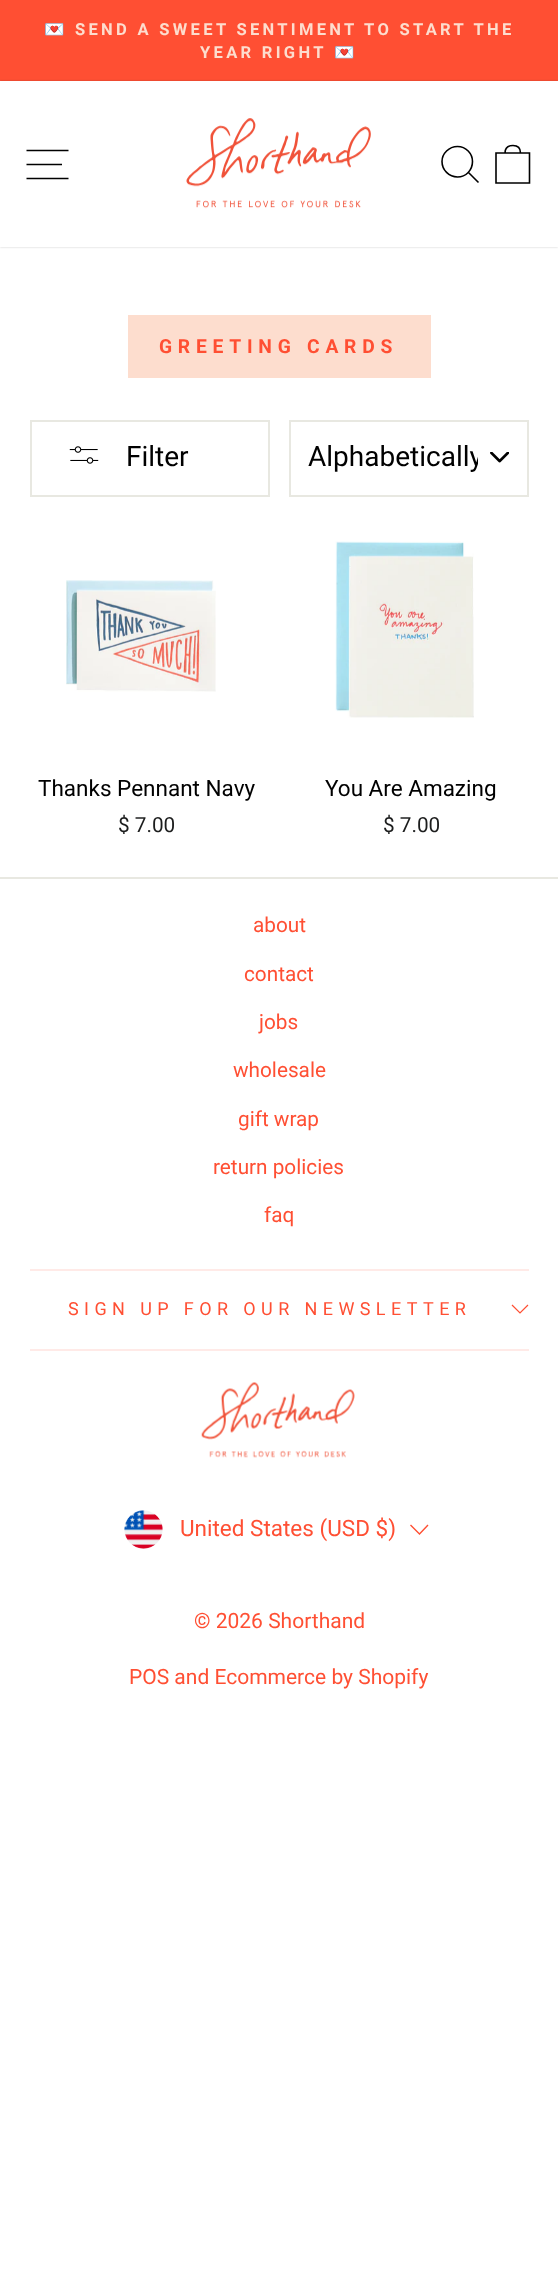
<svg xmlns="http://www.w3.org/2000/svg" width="558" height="2280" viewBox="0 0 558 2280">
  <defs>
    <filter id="blur1" x="-50%" y="-200%" width="200%" height="500%"><feGaussianBlur stdDeviation="1"/></filter>
    <clipPath id="clip1"><rect x="308" y="438" width="170" height="40"/></clipPath>
  </defs>
  <rect width="100%" height="100%" fill="#ffffff"/>
  <rect x="0" y="0" width="558" height="81" fill="#ff4f33"/>
  <text x="44" y="35" font-family="Noto Color Emoji" font-size="16.55" font-weight="bold" letter-spacing="3.3" fill="#fdddce">💌</text>
  <text x="75" y="35" font-family="Roboto" font-size="16.55" font-weight="bold" letter-spacing="3.3" fill="#fdddce">SEND A SWEET SENTIMENT TO START THE</text>
  <text x="200" y="58" font-family="Roboto" font-size="16.55" font-weight="bold" letter-spacing="3.3" fill="#fdddce">YEAR RIGHT</text>
  <text x="334" y="58" font-family="Noto Color Emoji" font-size="16.55" font-weight="bold" letter-spacing="3.3" fill="#fdddce">💌</text>
  <rect x="0" y="81" width="558" height="166" fill="#000000" fill-opacity="0.2" filter="url(#blur1)"/>
  <rect x="0" y="81" width="558" height="166" fill="#ffffff"/>
  <path d="M26.5 150.5H68.5M26.5 164.5H62M26.5 178.5H68.5" fill="none" stroke="#000000" stroke-width="1.6"/>
  <image x="186" y="118" width="185" height="91" href="img1.png"/>
  <path d="M472.5 161.5C472.5 170 466 177 457.5 177C449 177 442 170 442 161.5C442 153.5 449 146.5 457.5 146.5C466 146.5 472.5 153.5 472.5 161.5ZM478.5 182.5L468.5 172.5" fill="none" stroke="#000000" stroke-width="1.6"/>
  <path d="M496 153H529.5V183H496ZM505 153C505 147 508.5 145.5 513 145.5C517 145.5 520.5 147 520.5 153" fill="none" stroke="#000000" stroke-width="1.6"/>
  <rect x="128" y="315" width="303" height="63" fill="#fdddce"/>
  <text x="159" y="353" font-family="Roboto" font-size="19.25" font-weight="bold" letter-spacing="5.75" fill="#ff4f33">GREETING CARDS</text>
  <rect x="31" y="421" width="238" height="75" fill="none" stroke="#e8e8e1" stroke-width="2"/>
  <image x="69" y="446" width="30" height="18" href="img2.png"/>
  <text x="126" y="466" font-family="Roboto" font-size="28" fill="#000000">Filter</text>
  <image x="490" y="452" width="19" height="11" href="img3.png"/>
  <rect x="290" y="421" width="238" height="75" fill="none" stroke="#e8e8e1" stroke-width="2"/>
  <g clip-path="url(#clip1)">
    <text x="308" y="466" font-family="Roboto" font-size="28" fill="#000000">Alphabetically</text>
  </g>
  <image x="66" y="580" width="150" height="112" href="img4.png"/>
  <text x="38" y="796" font-family="Roboto" font-size="22.5" fill="#000000">Thanks Pennant Navy</text>
  <text x="118" y="832" font-family="Roboto" font-size="20.75" fill="#1c1d1d">$ 7.00</text>
  <image x="335" y="541" width="139" height="177" href="img5.png"/>
  <text x="325" y="796" font-family="Roboto" font-size="22.5" fill="#000000">You Are Amazing</text>
  <text x="383" y="832" font-family="Roboto" font-size="20.75" fill="#1c1d1d">$ 7.00</text>
  <rect x="0" y="877" width="558" height="2" fill="#e8e8e1"/>
  <text x="253" y="932" font-family="Roboto" font-size="20.75" fill="#ff4f33">about</text>
  <text x="244" y="981" font-family="Roboto" font-size="20.75" fill="#ff4f33">contact</text>
  <text x="259" y="1029" font-family="Roboto" font-size="20.75" fill="#ff4f33">jobs</text>
  <text x="233" y="1077" font-family="Roboto" font-size="20.75" fill="#ff4f33">wholesale</text>
  <text x="238" y="1126" font-family="Roboto" font-size="20.75" fill="#ff4f33">gift wrap</text>
  <text x="213" y="1174" font-family="Roboto" font-size="20.75" fill="#ff4f33">return policies</text>
  <text x="264" y="1222" font-family="Roboto" font-size="20.75" fill="#ff4f33">faq</text>
  <rect x="30" y="1269" width="499" height="2" fill="#ffeae7"/>
  <text x="68" y="1315" font-family="Roboto" font-size="18" letter-spacing="5.4" fill="#ff4f33">SIGN UP FOR OUR NEWSLETTER</text>
  <path d="M512 1305L520 1313L528 1305" fill="none" stroke="#ff4f33" stroke-width="1.2"/>
  <rect x="30" y="1349" width="499" height="2" fill="#ffeae7"/>
  <image x="201" y="1382" width="154" height="76" href="img6.png"/>
  <image x="124" y="1510" width="39" height="39" href="img7.png"/>
  <text x="180" y="1536" font-family="Roboto" font-size="22.5" fill="#ff4f33">United States (USD $)</text>
  <path d="M410.5 1525L419.5 1534L428 1525" fill="none" stroke="#ff4f33" stroke-width="1.4"/>
  <text x="194" y="1628" font-family="Roboto" font-size="21" fill="#ff4f33">© 2026 Shorthand</text>
  <text x="129" y="1684" font-family="Roboto" font-size="21" fill="#ff4f33">POS and Ecommerce by Shopify</text>
</svg>
